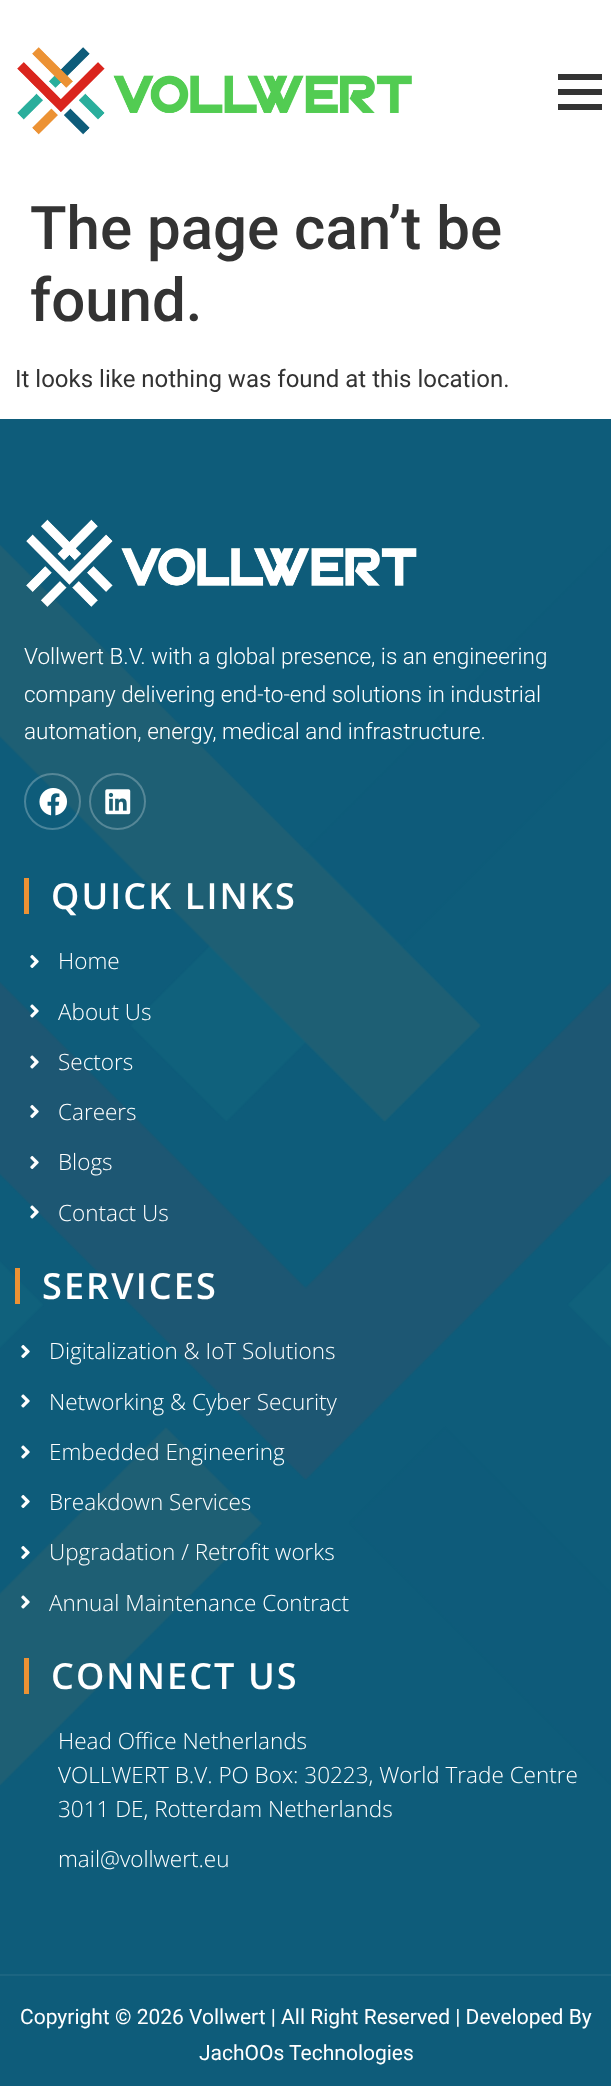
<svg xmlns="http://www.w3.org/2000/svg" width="611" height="2086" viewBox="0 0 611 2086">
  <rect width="100%" height="100%" fill="#ffffff"/>
  <image x="17" y="47" width="395" height="88" href="img1.png"/>
  <rect x="558" y="74" width="44" height="6" fill="#333333"/>
  <rect x="558" y="89" width="44" height="6" fill="#333333"/>
  <rect x="558" y="104" width="44" height="6" fill="#333333"/>
  <text x="30" y="249" font-family="Roboto" font-size="60" font-weight="500" fill="#333333">The page can’t be</text>
  <text x="30" y="321" font-family="Roboto" font-size="60" font-weight="500" fill="#333333">found.</text>
  <text x="15" y="387" font-family="Roboto" font-size="24" fill="#333333">It looks like nothing was found at this location.</text>
  <rect x="0" y="419" width="611" height="1555" fill="#0e5c7a"/>
  <image x="0" y="545" width="611" height="1240" href="img2.png"/>
  <image x="26" y="519" width="391" height="88" href="img3.png"/>
  <text x="24" y="664" font-family="Roboto" font-size="22.5" font-weight="300" fill="#ffffff">Vollwert B.V. with a global presence, is an engineering</text>
  <text x="24" y="702" font-family="Roboto" font-size="22.5" font-weight="300" fill="#ffffff">company delivering end-to-end solutions in industrial</text>
  <text x="24" y="739" font-family="Roboto" font-size="22.5" font-weight="300" fill="#ffffff">automation, energy, medical and infrastructure.</text>
  <circle cx="52.5" cy="801.5" r="27.5" fill="none" stroke="#ffffff" stroke-opacity="0.25" stroke-width="2"/>
  <image x="39" y="788" width="29" height="28" href="img4.png"/>
  <circle cx="117.5" cy="801.5" r="27.5" fill="none" stroke="#568797" stroke-width="2"/>
  <image x="105" y="789" width="26" height="26" href="img5.png"/>
  <rect x="24" y="878" width="5" height="36" fill="#ec9234"/>
  <text x="51" y="909" font-family="Open Sans" font-size="36" font-weight="600" letter-spacing="2.1" fill="#ffffff">QUICK LINKS</text>
  <image x="30" y="954" width="9" height="14" href="img6.png"/>
  <text x="58" y="969" font-family="Open Sans" font-size="22.5" font-weight="300" fill="#ffffff">Home</text>
  <image x="30" y="1004" width="9" height="14" href="img7.png"/>
  <text x="58" y="1020" font-family="Open Sans" font-size="22.5" font-weight="300" fill="#ffffff">About Us</text>
  <image x="30" y="1055" width="9" height="14" href="img8.png"/>
  <text x="58" y="1070" font-family="Open Sans" font-size="22.5" font-weight="300" fill="#ffffff">Sectors</text>
  <image x="30" y="1104" width="9" height="14" href="img9.png"/>
  <text x="58" y="1120" font-family="Open Sans" font-size="22.5" font-weight="300" fill="#ffffff">Careers</text>
  <image x="30" y="1155" width="9" height="14" href="img9.png"/>
  <text x="58" y="1170" font-family="Open Sans" font-size="22.5" font-weight="300" fill="#ffffff">Blogs</text>
  <image x="30" y="1205" width="9" height="14" href="img10.png"/>
  <text x="58" y="1221" font-family="Open Sans" font-size="22.5" font-weight="300" fill="#ffffff">Contact Us</text>
  <rect x="15" y="1268" width="5" height="36" fill="#ec9234"/>
  <text x="42" y="1299" font-family="Open Sans" font-size="36" font-weight="600" letter-spacing="2.1" fill="#ffffff">SERVICES</text>
  <image x="21" y="1344" width="9" height="14" href="img6.png"/>
  <text x="49" y="1359" font-family="Open Sans" font-size="22.5" font-weight="300" fill="#ffffff">Digitalization &amp; IoT Solutions</text>
  <image x="21" y="1394" width="9" height="14" href="img11.png"/>
  <text x="49" y="1410" font-family="Open Sans" font-size="22.5" font-weight="300" fill="#ffffff">Networking &amp; Cyber Security</text>
  <image x="21" y="1445" width="9" height="14" href="img11.png"/>
  <text x="49" y="1460" font-family="Open Sans" font-size="22.5" font-weight="300" fill="#ffffff">Embedded Engineering</text>
  <image x="21" y="1494" width="9" height="14" href="img6.png"/>
  <text x="49" y="1510" font-family="Open Sans" font-size="22.5" font-weight="300" fill="#ffffff">Breakdown Services</text>
  <image x="21" y="1545" width="9" height="14" href="img6.png"/>
  <text x="49" y="1560" font-family="Open Sans" font-size="22.5" font-weight="300" fill="#ffffff">Upgradation / Retrofit works</text>
  <image x="21" y="1595" width="9" height="14" href="img12.png"/>
  <text x="49" y="1611" font-family="Open Sans" font-size="22.5" font-weight="300" fill="#ffffff">Annual Maintenance Contract</text>
  <rect x="24" y="1658" width="5" height="36" fill="#ec9234"/>
  <text x="51" y="1689" font-family="Open Sans" font-size="36" font-weight="600" letter-spacing="2.1" fill="#ffffff">CONNECT US</text>
  <text x="58" y="1749" font-family="Open Sans" font-size="22.5" font-weight="300" fill="#ffffff">Head Office Netherlands</text>
  <text x="58" y="1783" font-family="Open Sans" font-size="22.5" font-weight="300" fill="#ffffff">VOLLWERT B.V. PO Box: 30223, World Trade Centre</text>
  <text x="58" y="1817" font-family="Open Sans" font-size="22.5" font-weight="300" fill="#ffffff">3011 DE, Rotterdam Netherlands</text>
  <text x="58" y="1867" font-family="Open Sans" font-size="22.5" font-weight="300" fill="#ffffff">mail@vollwert.eu</text>
  <rect x="0" y="1976" width="611" height="110" fill="#0e5c7a"/>
  <rect x="0" y="1974" width="611" height="2" fill="#1c6581"/>
  <text x="20" y="2024" font-family="Roboto" font-size="21" fill="#ffffff">Copyright © 2026 Vollwert | All Right Reserved | Developed By</text>
  <text x="199" y="2060" font-family="Roboto" font-size="21" fill="#ffffff">JachOOs Technologies</text>
</svg>
